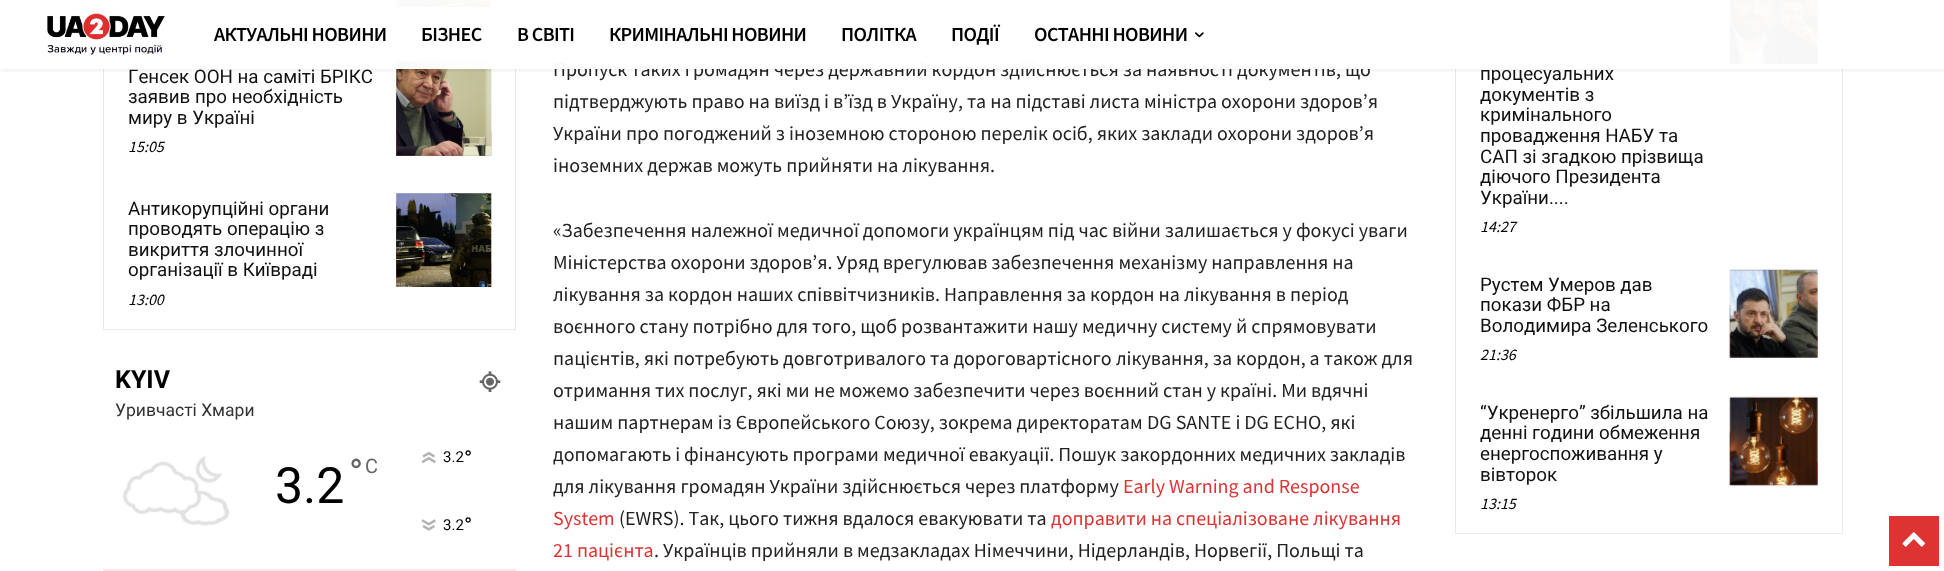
<svg xmlns="http://www.w3.org/2000/svg" width="1944" height="571" viewBox="0 0 1944 571">
  <style>*{font-kerning:none!important;font-variant-ligatures:none!important}</style>
  <defs>
    <clipPath id="clip1"><rect x="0" y="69" width="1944" height="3"/></clipPath>
    <filter id="blur1" x="-50%" y="-200%" width="200%" height="500%"><feGaussianBlur stdDeviation="2.5"/></filter>
  </defs>
  <rect width="100%" height="100%" fill="#ffffff"/>
  <image x="396" y="0" width="96" height="7" href="img3.png"/>
  <image x="396" y="60" width="96" height="96" href="img5.png"/>
  <image x="396" y="193" width="96" height="94" href="img7.png"/>
  <rect x="103.5" y="-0.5" width="412" height="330" fill="none" stroke="#eaeaea"/>
  <image x="396" y="0" width="96" height="7" href="img4.png"/>
  <image x="396" y="60" width="96" height="96" href="img6.png"/>
  <text x="553" y="76" font-family="Source Sans Pro" font-size="20" fill="#222222">Пропуск таких громадян через державний кордон здійснюється за наявності документів, що</text>
  <image x="1729" y="0" width="89" height="65" href="img13.png"/>
  <image x="1729" y="269" width="89" height="89" href="img15.png"/>
  <image x="1729" y="397" width="89" height="89" href="img18.png"/>
  <rect x="1455.5" y="-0.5" width="387" height="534" fill="none" stroke="#eaeaea"/>
  <image x="1729" y="0" width="89" height="65" href="img14.png"/>
  <rect x="103" y="0" width="1740" height="69" fill="#ffffff" fill-opacity="0.97"/>
  <image x="47" y="13" width="118" height="42" href="img1.png"/>
  <g clip-path="url(#clip1)">
    <rect x="0" y="3" width="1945" height="68" fill="#000000" fill-opacity="0.06" filter="url(#blur1)"/>
  </g>
  <text x="214" y="41" font-family="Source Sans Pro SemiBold" font-size="20" font-weight="600" letter-spacing="-0.6" fill="#000000">АКТУАЛЬНІ НОВИНИ</text>
  <text x="421" y="41" font-family="Source Sans Pro SemiBold" font-size="20" font-weight="600" letter-spacing="-0.6" fill="#000000">БІЗНЕС</text>
  <text x="517" y="41" font-family="Source Sans Pro SemiBold" font-size="20" font-weight="600" letter-spacing="-0.6" fill="#000000">В СВІТІ</text>
  <text x="609" y="41" font-family="Source Sans Pro SemiBold" font-size="20" font-weight="600" letter-spacing="-0.6" fill="#000000">КРИМІНАЛЬНІ НОВИНИ</text>
  <text x="841" y="41" font-family="Source Sans Pro SemiBold" font-size="20" font-weight="600" letter-spacing="-0.6" fill="#000000">ПОЛІТКА</text>
  <text x="951" y="41" font-family="Source Sans Pro SemiBold" font-size="20" font-weight="600" letter-spacing="-0.6" fill="#000000">ПОДІЇ</text>
  <text x="1034" y="41" font-family="Source Sans Pro SemiBold" font-size="20" font-weight="600" letter-spacing="-0.6" fill="#000000">ОСТАННІ НОВИНИ</text>
  <image x="1195" y="32" width="9" height="6" href="img2.png"/>
  <text x="128" y="83" font-family="Roboto" font-size="18.75" fill="#111111">Генсек ООН на саміті БРІКС</text>
  <text x="128" y="103" font-family="Roboto" font-size="18.75" fill="#111111">заявив про необхідність</text>
  <text x="128" y="124" font-family="Roboto" font-size="18.75" fill="#111111">миру в Україні</text>
  <text x="128" y="152" font-family="Source Sans Pro" font-size="16" font-style="italic" fill="#000000">15:05</text>
  <text x="128" y="215" font-family="Roboto" font-size="18.75" fill="#111111">Антикорупційні органи</text>
  <text x="128" y="235" font-family="Roboto" font-size="18.75" fill="#111111">проводять операцію з</text>
  <text x="128" y="256" font-family="Roboto" font-size="18.75" fill="#111111">викриття злочинної</text>
  <text x="128" y="276" font-family="Roboto" font-size="18.75" fill="#111111">організації в Київраді</text>
  <text x="128" y="305" font-family="Source Sans Pro" font-size="16" font-style="italic" fill="#000000">13:00</text>
  <image x="396" y="193" width="96" height="94" href="img8.png"/>
  <text x="115" y="388" font-family="Roboto" font-size="25" font-weight="bold" fill="#000000">KYIV</text>
  <image x="479" y="371" width="22" height="21" href="img9.png"/>
  <text x="115" y="416" font-family="Roboto" font-size="17.5" fill="#333333">Уривчасті Хмари</text>
  <image x="122" y="456" width="108" height="70" href="img10.png"/>
  <text x="275" y="503" font-family="Roboto" font-size="50" fill="#000000">3.2</text>
  <text x="349" y="486" font-family="Roboto" font-size="38" fill="#666666">°</text>
  <text x="365" y="473" font-family="Roboto" font-size="20" fill="#666666">C</text>
  <image x="421" y="451" width="15" height="13" href="img11.png"/>
  <text x="443" y="462" font-family="Roboto" font-size="15" fill="#000000">3.2</text>
  <text x="464" y="466" font-family="Roboto" font-size="22" fill="#000000">°</text>
  <image x="421" y="519" width="15" height="12" href="img12.png"/>
  <text x="443" y="530" font-family="Roboto" font-size="15" fill="#000000">3.2</text>
  <text x="464" y="533" font-family="Roboto" font-size="22" fill="#000000">°</text>
  <rect x="103" y="569" width="413" height="2" fill="#fbe7e7"/>
  <text x="553" y="108" font-family="Source Sans Pro" font-size="20" fill="#222222">підтверджують право на виїзд і в’їзд в Україну, та на підставі листа міністра</text>
  <text x="1221" y="108" font-family="Source Sans Pro" font-size="20" fill="#222222">охорони здоров’я</text>
  <text x="553" y="140" font-family="Source Sans Pro" font-size="20" fill="#222222">України про погоджений з іноземною стороною перелік осіб, яких заклади охорони здоров’я</text>
  <text x="553" y="172" font-family="Source Sans Pro" font-size="20" fill="#222222">іноземних держав можуть прийняти на лікування.</text>
  <text x="553" y="237" font-family="Source Sans Pro" font-size="20" fill="#222222">«Забезпечення належної медичної допомоги українцям під час війни залишається у фокусі уваги</text>
  <text x="553" y="269" font-family="Source Sans Pro" font-size="20" fill="#222222">Міністерства охорони здоров’я. Уряд врегулював забезпечення механізму направлення на</text>
  <text x="553" y="301" font-family="Source Sans Pro" font-size="20" fill="#222222">лікування за кордон наших співвітчизників. Направлення за кордон на лікування в період</text>
  <text x="553" y="333" font-family="Source Sans Pro" font-size="20" fill="#222222">воєнного стану потрібно для того, щоб розвантажити нашу медичну систему</text>
  <text x="1236" y="333" font-family="Source Sans Pro" font-size="20" fill="#222222">й спрямовувати</text>
  <text x="553" y="365" font-family="Source Sans Pro" font-size="20" fill="#222222">пацієнтів, які потребують довготривалого та дороговартісного</text>
  <text x="1116" y="365" font-family="Source Sans Pro" font-size="20" fill="#222222">лікування, за кордон, а також для</text>
  <text x="553" y="397" font-family="Source Sans Pro" font-size="20" fill="#222222">отримання тих послуг, які ми не можемо забезпечити через воєнний стан у країні. Ми вдячні</text>
  <text x="553" y="429" font-family="Source Sans Pro" font-size="20" fill="#222222">нашим партнерам із Європейського Союзу, зокрема директоратам</text>
  <text x="1147" y="429" font-family="Source Sans Pro" font-size="20" fill="#222222">DG SANTE і DG ECHO, які</text>
  <text x="553" y="461" font-family="Source Sans Pro" font-size="20" fill="#222222">допомагають і фінансують програми медичної евакуації. Пошук закордонних медичних закладів</text>
  <text x="553" y="493" font-family="Source Sans Pro" font-size="20" fill="#222222">для лікування громадян України здійснюється через платформу</text>
  <text x="1123" y="493" font-family="Source Sans Pro" font-size="20" fill="#dd3333">Early Warning and Response</text>
  <text x="553" y="525" font-family="Source Sans Pro" font-size="20" fill="#dd3333">System</text>
  <text x="619" y="525" font-family="Source Sans Pro" font-size="20" fill="#222222">(EWRS). Так, цього тижня вдалося евакуювати та</text>
  <text x="1051" y="525" font-family="Source Sans Pro" font-size="20" fill="#dd3333">доправити на спеціалізоване лікування</text>
  <text x="553" y="557" font-family="Source Sans Pro" font-size="20" fill="#dd3333">21 пацієнта</text>
  <text x="654" y="557" font-family="Source Sans Pro" font-size="20" fill="#222222">. Українців прийняли в медзакладах Німеччини, Нідерландів, Норвегії, Польщі та</text>
  <text x="1480" y="80" font-family="Roboto" font-size="18.75" fill="#111111">процесуальних</text>
  <text x="1480" y="101" font-family="Roboto" font-size="18.75" fill="#111111">документів з</text>
  <text x="1480" y="121" font-family="Roboto" font-size="18.75" fill="#111111">кримінального</text>
  <text x="1480" y="142" font-family="Roboto" font-size="18.75" fill="#111111">провадження НАБУ та</text>
  <text x="1480" y="163" font-family="Roboto" font-size="18.75" fill="#111111">САП зі згадкою прізвища</text>
  <text x="1480" y="183" font-family="Roboto" font-size="18.75" fill="#111111">діючого Президента</text>
  <text x="1480" y="204" font-family="Roboto" font-size="18.75" fill="#111111">України....</text>
  <text x="1480" y="232" font-family="Source Sans Pro" font-size="16" font-style="italic" fill="#000000">14:27</text>
  <text x="1480" y="291" font-family="Roboto" font-size="18.75" fill="#111111">Рустем Умеров дав</text>
  <text x="1480" y="311" font-family="Roboto" font-size="18.75" fill="#111111">покази ФБР на</text>
  <text x="1480" y="332" font-family="Roboto" font-size="18.75" fill="#111111">Володимира Зеленського</text>
  <text x="1480" y="360" font-family="Source Sans Pro" font-size="16" font-style="italic" fill="#000000">21:36</text>
  <image x="1729" y="269" width="89" height="89" href="img16.png"/>
  <text x="1480" y="419" font-family="Roboto" font-size="18.75" fill="#111111">“Укренерго” збільшила на</text>
  <text x="1480" y="439" font-family="Roboto" font-size="18.75" fill="#111111">денні години обмеження</text>
  <text x="1480" y="460" font-family="Roboto" font-size="18.75" fill="#111111">енергоспоживання у</text>
  <text x="1480" y="481" font-family="Roboto" font-size="18.75" fill="#111111">вівторок</text>
  <text x="1480" y="509" font-family="Source Sans Pro" font-size="16" font-style="italic" fill="#000000">13:15</text>
  <image x="1729" y="396" width="89" height="90" href="img17.png"/>
  <rect x="1889" y="516" width="50" height="50" fill="#dd3333"/>
  <image x="1902" y="532" width="23" height="15" href="img19.png"/>
</svg>
